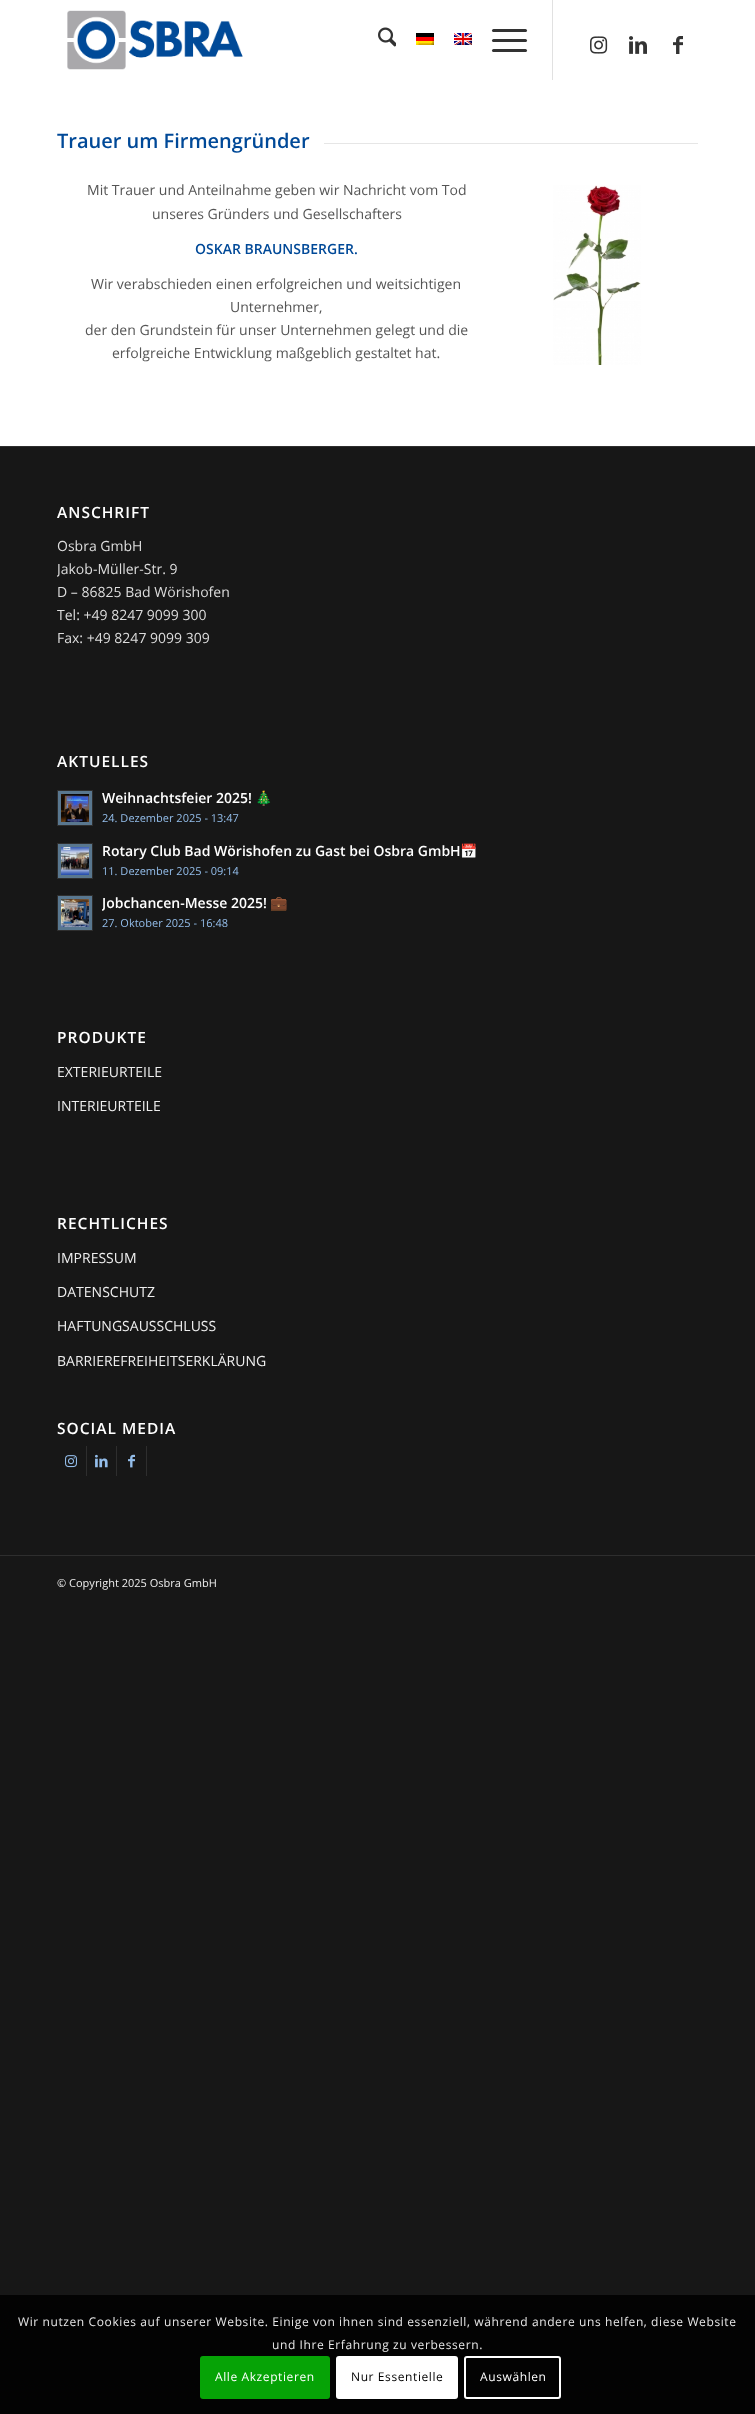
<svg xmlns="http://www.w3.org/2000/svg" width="755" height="2414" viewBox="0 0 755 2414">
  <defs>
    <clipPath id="clip1"><rect x="57" y="492" width="641" height="169"/></clipPath>
    <clipPath id="clip2"><rect x="102" y="893" width="596" height="41"/></clipPath>
  </defs>
  <rect width="100%" height="100%" fill="#171717"/>
  <rect x="0" y="0" width="755" height="446" fill="#ffffff"/>
  <image x="67" y="10" width="176" height="60" href="img1.png"/>
  <rect x="552" y="0" width="1" height="80" fill="#e1e1e1"/>
  <image x="378" y="27" width="18" height="20" href="img2.png"/>
  <image x="416" y="33" width="18" height="12" href="img3.png"/>
  <image x="454" y="33" width="18" height="12" href="img4.png"/>
  <rect x="492" y="39" width="35" height="3" rx="1.5" fill="#333333"/>
  <rect x="492" y="29" width="35" height="3" rx="1.5" fill="#333333"/>
  <rect x="492" y="49" width="35" height="3" rx="1.5" fill="#333333"/>
  <image x="590" y="36" width="18" height="18" href="img5.png"/>
  <image x="629" y="36" width="18" height="18" href="img6.png"/>
  <image x="673" y="36" width="10" height="18" href="img7.png"/>
  <text x="57" y="148" font-family="Open Sans" font-size="20" font-weight="600" fill="#004998">Trauer um Firmengründer</text>
  <rect x="324" y="143" width="374" height="1" fill="#e6e6e6"/>
  <text x="87" y="195" font-family="Open Sans" font-size="14" fill="#555555">Mit Trauer und Anteilnahme geben wir Nachricht vom Tod</text>
  <image x="553" y="185" width="88" height="180" href="img8.png"/>
  <text x="152" y="219" font-family="Open Sans" font-size="14" fill="#555555">unseres Gründers und Gesellschafters</text>
  <text x="195" y="254" font-family="Open Sans" font-size="14" font-weight="600" fill="#004998">OSKAR BRAUNSBERGER.</text>
  <text x="91" y="289" font-family="Open Sans" font-size="14" fill="#555555">Wir verabschieden einen erfolgreichen und weitsichtigen</text>
  <text x="230" y="312" font-family="Open Sans" font-size="14" fill="#555555">Unternehmer,</text>
  <text x="85" y="335" font-family="Open Sans" font-size="14" fill="#555555">der den Grundstein für unser Unternehmen gelegt und die</text>
  <text x="112" y="358" font-family="Open Sans" font-size="14" fill="#555555">erfolgreiche Entwicklung maßgeblich gestaltet hat.</text>
  <rect x="0" y="446" width="755" height="1" fill="#2e2e2e"/>
  <text x="57" y="518" font-family="Open Sans" font-size="15.5" font-weight="600" letter-spacing="1" fill="#ffffff">ANSCHRIFT</text>
  <text x="57" y="551" font-family="Open Sans" font-size="14" fill="#dddddd">Osbra GmbH</text>
  <g clip-path="url(#clip1)">
    <text x="57" y="574" font-family="Open Sans" font-size="14" fill="#dddddd">Jakob-Müller-Str. 9</text>
  </g>
  <text x="57" y="597" font-family="Open Sans" font-size="14" fill="#dddddd">D – 86825 Bad Wörishofen</text>
  <text x="57" y="620" font-family="Open Sans" font-size="14" fill="#dddddd">Tel: +49 8247 9099 300</text>
  <text x="57" y="643" font-family="Open Sans" font-size="14" fill="#dddddd">Fax: +49 8247 9099 309</text>
  <text x="57" y="767" font-family="Open Sans" font-size="15.5" font-weight="600" letter-spacing="1" fill="#ffffff">AKTUELLES</text>
  <rect x="57.5" y="790.5" width="35" height="35" fill="#59778f" stroke="#2e2e2e"/>
  <image x="61" y="794" width="28" height="28" href="img9.png"/>
  <text x="102" y="803" font-family="Open Sans" font-size="14" font-weight="600" fill="#ffffff">Weihnachtsfeier 2025!</text>
  <text x="255" y="803" font-family="Noto Color Emoji" font-size="14" font-weight="bold" fill="#ffffff">🎄</text>
  <text x="102" y="822" font-family="Open Sans" font-size="11" fill="#94beeb">24. Dezember 2025 - 13:47</text>
  <rect x="57.5" y="843.5" width="35" height="35" fill="#59778f" stroke="#2e2e2e"/>
  <image x="61" y="847" width="28" height="28" href="img10.png"/>
  <text x="102" y="856" font-family="Open Sans" font-size="14" font-weight="600" fill="#ffffff">Rotary Club Bad Wörishofen zu Gast bei Osbra GmbH</text>
  <text x="460" y="856" font-family="Noto Color Emoji" font-size="14" font-weight="bold" fill="#ffffff">📅</text>
  <text x="102" y="875" font-family="Open Sans" font-size="11" fill="#94beeb">11. Dezember 2025 - 09:14</text>
  <rect x="57.5" y="895.5" width="35" height="35" fill="#59778f" stroke="#2e2e2e"/>
  <image x="61" y="899" width="28" height="28" href="img11.png"/>
  <g clip-path="url(#clip2)">
    <text x="102" y="908" font-family="Open Sans" font-size="14" font-weight="600" fill="#ffffff">Jobchancen-Messe 2025!</text>
  </g>
  <text x="270" y="908" font-family="Noto Color Emoji" font-size="14" font-weight="bold" fill="#ffffff">💼</text>
  <text x="102" y="927" font-family="Open Sans" font-size="11" fill="#94beeb">27. Oktober 2025 - 16:48</text>
  <text x="57" y="1043" font-family="Open Sans" font-size="15.5" font-weight="600" letter-spacing="1" fill="#ffffff">PRODUKTE</text>
  <text x="57" y="1077" font-family="Open Sans" font-size="14" fill="#eeeeee">EXTERIEURTEILE</text>
  <text x="57" y="1111" font-family="Open Sans" font-size="14" fill="#eeeeee">INTERIEURTEILE</text>
  <text x="57" y="1229" font-family="Open Sans" font-size="15.5" font-weight="600" letter-spacing="1" fill="#ffffff">RECHTLICHES</text>
  <text x="57" y="1263" font-family="Open Sans" font-size="14" fill="#eeeeee">IMPRESSUM</text>
  <text x="57" y="1297" font-family="Open Sans" font-size="14" fill="#eeeeee">DATENSCHUTZ</text>
  <text x="57" y="1331" font-family="Open Sans" font-size="14" fill="#eeeeee">HAFTUNGSAUSSCHLUSS</text>
  <text x="57" y="1366" font-family="Open Sans" font-size="14" fill="#eeeeee">BARRIEREFREIHEITSERKLÄRUNG</text>
  <text x="57" y="1434" font-family="Open Sans" font-size="15.5" font-weight="600" letter-spacing="1" fill="#ffffff">SOCIAL MEDIA</text>
  <rect x="86" y="1446" width="1" height="30" fill="#2e2e2e"/>
  <image x="65" y="1455" width="12" height="13" href="img12.png"/>
  <rect x="116" y="1446" width="1" height="30" fill="#2e2e2e"/>
  <image x="95" y="1454" width="13" height="14" href="img13.png"/>
  <rect x="146" y="1446" width="1" height="30" fill="#2e2e2e"/>
  <image x="128" y="1454" width="7" height="14" href="img14.png"/>
  <rect x="0" y="1555" width="755" height="1" fill="#2e2e2e"/>
  <text x="57" y="1587" font-family="Open Sans" font-size="11" fill="#eeeeee">© Copyright 2025 Osbra GmbH</text>
  <rect x="0" y="2295" width="755" height="119" fill="#030303"/>
  <text x="18" y="2326" font-family="Open Sans" font-size="12" letter-spacing="0.6" fill="#e6e6e6">Wir nutzen Cookies auf unserer Website. Einige von ihnen sind essenziell, während andere uns helfen, diese Website</text>
  <text x="272" y="2349" font-family="Open Sans" font-size="12" letter-spacing="0.6" fill="#e6e6e6">und Ihre Erfahrung zu verbessern.</text>
  <rect x="200" y="2356" width="130" height="43" rx="3" fill="#06a306"/>
  <text x="215" y="2381" font-family="Open Sans" font-size="12" letter-spacing="0.6" fill="#ffffff">Alle Akzeptieren</text>
  <rect x="336" y="2356" width="122" height="43" rx="3" fill="#ffffff"/>
  <text x="351" y="2381" font-family="Open Sans" font-size="12" letter-spacing="0.6" fill="#000000">Nur Essentielle</text>
  <rect x="465" y="2357" width="95" height="41" rx="2" fill="none" stroke="#ffffff" stroke-width="2"/>
  <text x="480" y="2381" font-family="Open Sans" font-size="12" letter-spacing="0.6" fill="#ffffff">Auswählen</text>
</svg>
